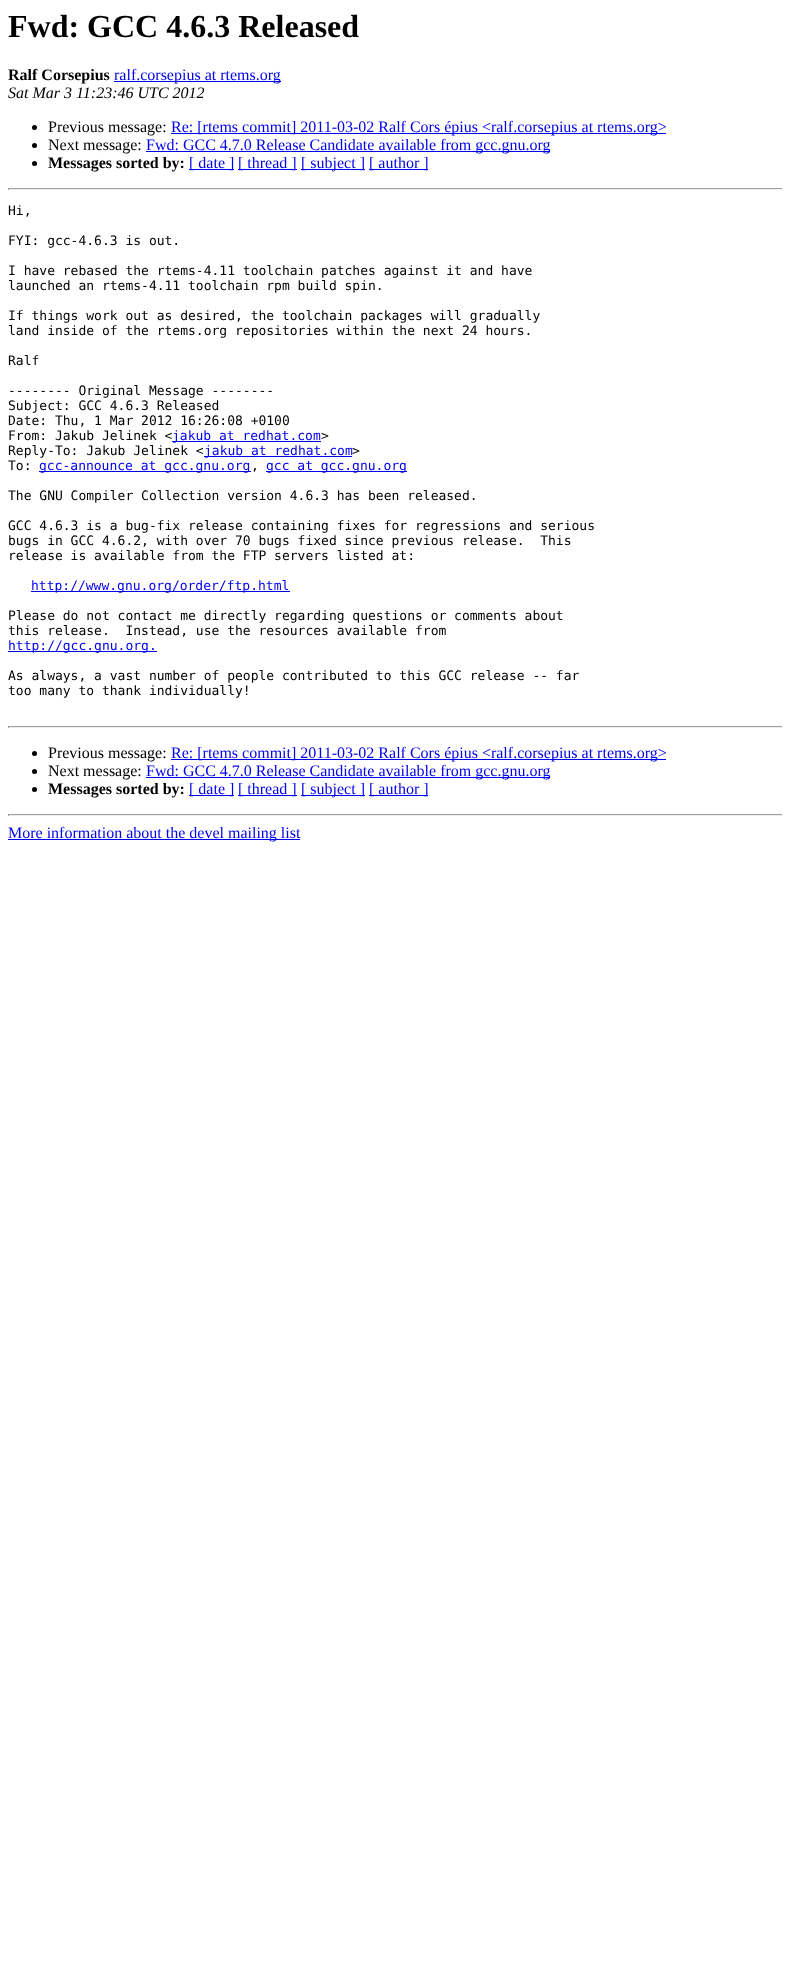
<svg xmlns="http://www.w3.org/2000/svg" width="791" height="1974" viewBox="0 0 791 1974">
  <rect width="100%" height="100%" fill="#ffffff"/>
  <text x="8" y="37" font-family="Liberation Serif" font-size="32" font-weight="bold" fill="#000000">Fwd: GCC 4.6.3 Released</text>
  <text x="8" y="80" font-family="Liberation Serif" font-size="16" font-weight="bold" fill="#000000">Ralf Corsepius</text>
  <rect x="114" y="81" width="167" height="1" fill="#0000ee"/>
  <text x="114" y="80" font-family="Liberation Serif" font-size="16" fill="#0000ee">ralf.corsepius at rtems.org</text>
  <text x="8" y="98" font-family="Liberation Serif" font-size="16" font-style="italic" fill="#000000">Sat Mar 3 11:23:46 UTC 2012</text>
  <circle cx="34.5" cy="127.5" r="2.5" fill="#000000"/>
  <text x="48" y="132" font-family="Liberation Serif" font-size="16" fill="#000000">Previous message:</text>
  <rect x="171" y="133" width="495" height="1" fill="#0000ee"/>
  <text x="171" y="132" font-family="Liberation Serif" font-size="16" fill="#0000ee">Re: [rtems commit] 2011-03-02 Ralf Cors épius &lt;ralf.corsepius at rtems.org&gt;</text>
  <circle cx="34.5" cy="145.5" r="2.5" fill="#000000"/>
  <text x="48" y="150" font-family="Liberation Serif" font-size="16" fill="#000000">Next message:</text>
  <rect x="146" y="151" width="404" height="1" fill="#0000ee"/>
  <text x="146" y="150" font-family="Liberation Serif" font-size="16" fill="#0000ee">Fwd: GCC 4.7.0 Release Candidate available from gcc.gnu.org</text>
  <circle cx="34.5" cy="163.5" r="2.5" fill="#000000"/>
  <text x="48" y="168" font-family="Liberation Serif" font-size="16" font-weight="bold" fill="#000000">Messages sorted by:</text>
  <rect x="189" y="169" width="45" height="1" fill="#0000ee"/>
  <text x="189" y="168" font-family="Liberation Serif" font-size="16" fill="#0000ee">[ date ]</text>
  <rect x="238" y="169" width="59" height="1" fill="#0000ee"/>
  <text x="238" y="168" font-family="Liberation Serif" font-size="16" fill="#0000ee">[ thread ]</text>
  <rect x="301" y="169" width="64" height="1" fill="#0000ee"/>
  <text x="301" y="168" font-family="Liberation Serif" font-size="16" fill="#0000ee">[ subject ]</text>
  <rect x="369" y="169" width="59" height="1" fill="#0000ee"/>
  <text x="369" y="168" font-family="Liberation Serif" font-size="16" fill="#0000ee">[ author ]</text>
  <rect x="8" y="188" width="775" height="1" fill="#9f9f9f"/>
  <rect x="782" y="188" width="1" height="2" fill="#eeeeee"/>
  <rect x="8" y="189" width="775" height="1" fill="#eeeeee"/>
  <rect x="8" y="188" width="1" height="2" fill="#9f9f9f"/>
  <text x="8" y="215" font-family="DejaVu Sans Mono" font-size="13" fill="#000000">Hi,</text>
  <text x="8" y="245" font-family="DejaVu Sans Mono" font-size="13" fill="#000000">FYI: gcc-4.6.3 is out.</text>
  <text x="8" y="275" font-family="DejaVu Sans Mono" font-size="13" fill="#000000">I have rebased the rtems-4.11 toolchain patches against it and have</text>
  <text x="8" y="290" font-family="DejaVu Sans Mono" font-size="13" fill="#000000">launched an rtems-4.11 toolchain rpm build spin.</text>
  <text x="8" y="320" font-family="DejaVu Sans Mono" font-size="13" fill="#000000">If things work out as desired, the toolchain packages will gradually</text>
  <text x="8" y="335" font-family="DejaVu Sans Mono" font-size="13" fill="#000000">land inside of the rtems.org repositories within the next 24 hours.</text>
  <text x="8" y="365" font-family="DejaVu Sans Mono" font-size="13" fill="#000000">Ralf</text>
  <text x="8" y="395" font-family="DejaVu Sans Mono" font-size="13" fill="#000000">-------- Original Message --------</text>
  <text x="8" y="410" font-family="DejaVu Sans Mono" font-size="13" fill="#000000">Subject: GCC 4.6.3 Released</text>
  <text x="8" y="425" font-family="DejaVu Sans Mono" font-size="13" fill="#000000">Date: Thu, 1 Mar 2012 16:26:08 +0100</text>
  <text x="8" y="440" font-family="DejaVu Sans Mono" font-size="13" fill="#000000">From: Jakub Jelinek &lt;</text>
  <rect x="172" y="441" width="149" height="1" fill="#0000ee"/>
  <text x="172" y="440" font-family="DejaVu Sans Mono" font-size="13" fill="#0000ee">jakub at redhat.com</text>
  <text x="321" y="440" font-family="DejaVu Sans Mono" font-size="13" fill="#000000">&gt;</text>
  <text x="8" y="455" font-family="DejaVu Sans Mono" font-size="13" fill="#000000">Reply-To: Jakub Jelinek &lt;</text>
  <rect x="204" y="456" width="148" height="1" fill="#0000ee"/>
  <text x="204" y="455" font-family="DejaVu Sans Mono" font-size="13" fill="#0000ee">jakub at redhat.com</text>
  <text x="352" y="455" font-family="DejaVu Sans Mono" font-size="13" fill="#000000">&gt;</text>
  <text x="8" y="470" font-family="DejaVu Sans Mono" font-size="13" fill="#000000">To:</text>
  <rect x="39" y="471" width="212" height="1" fill="#0000ee"/>
  <text x="39" y="470" font-family="DejaVu Sans Mono" font-size="13" fill="#0000ee">gcc-announce at gcc.gnu.org</text>
  <text x="251" y="470" font-family="DejaVu Sans Mono" font-size="13" fill="#000000">,</text>
  <rect x="266" y="471" width="141" height="1" fill="#0000ee"/>
  <text x="266" y="470" font-family="DejaVu Sans Mono" font-size="13" fill="#0000ee">gcc at gcc.gnu.org</text>
  <text x="8" y="500" font-family="DejaVu Sans Mono" font-size="13" fill="#000000">The GNU Compiler Collection version 4.6.3 has been released.</text>
  <text x="8" y="530" font-family="DejaVu Sans Mono" font-size="13" fill="#000000">GCC 4.6.3 is a bug-fix release containing fixes for regressions and serious</text>
  <text x="8" y="545" font-family="DejaVu Sans Mono" font-size="13" fill="#000000" xml:space="preserve">bugs in GCC 4.6.2, with over 70 bugs fixed since previous release.  This</text>
  <text x="8" y="560" font-family="DejaVu Sans Mono" font-size="13" fill="#000000">release is available from the FTP servers listed at:</text>
  <rect x="31" y="591" width="259" height="1" fill="#0000ee"/>
  <text x="31" y="590" font-family="DejaVu Sans Mono" font-size="13" fill="#0000ee">http://www.gnu.org/order/ftp.html</text>
  <text x="8" y="620" font-family="DejaVu Sans Mono" font-size="13" fill="#000000">Please do not contact me directly regarding questions or comments about</text>
  <text x="8" y="635" font-family="DejaVu Sans Mono" font-size="13" fill="#000000" xml:space="preserve">this release.  Instead, use the resources available from</text>
  <rect x="8" y="651" width="149" height="1" fill="#0000ee"/>
  <text x="8" y="650" font-family="DejaVu Sans Mono" font-size="13" fill="#0000ee">http://gcc.gnu.org.</text>
  <text x="8" y="680" font-family="DejaVu Sans Mono" font-size="13" fill="#000000">As always, a vast number of people contributed to this GCC release -- far</text>
  <text x="8" y="695" font-family="DejaVu Sans Mono" font-size="13" fill="#000000">too many to thank individually!</text>
  <rect x="8" y="726" width="775" height="1" fill="#9f9f9f"/>
  <rect x="782" y="726" width="1" height="2" fill="#eeeeee"/>
  <rect x="8" y="727" width="775" height="1" fill="#eeeeee"/>
  <rect x="8" y="726" width="1" height="2" fill="#9f9f9f"/>
  <circle cx="34.5" cy="753.5" r="2.5" fill="#000000"/>
  <text x="48" y="758" font-family="Liberation Serif" font-size="16" fill="#000000">Previous message:</text>
  <rect x="171" y="759" width="495" height="1" fill="#0000ee"/>
  <text x="171" y="758" font-family="Liberation Serif" font-size="16" fill="#0000ee">Re: [rtems commit] 2011-03-02 Ralf Cors épius &lt;ralf.corsepius at rtems.org&gt;</text>
  <circle cx="34.5" cy="771.5" r="2.5" fill="#000000"/>
  <text x="48" y="776" font-family="Liberation Serif" font-size="16" fill="#000000">Next message:</text>
  <rect x="146" y="777" width="404" height="1" fill="#0000ee"/>
  <text x="146" y="776" font-family="Liberation Serif" font-size="16" fill="#0000ee">Fwd: GCC 4.7.0 Release Candidate available from gcc.gnu.org</text>
  <circle cx="34.5" cy="789.5" r="2.5" fill="#000000"/>
  <text x="48" y="794" font-family="Liberation Serif" font-size="16" font-weight="bold" fill="#000000">Messages sorted by:</text>
  <rect x="189" y="795" width="45" height="1" fill="#0000ee"/>
  <text x="189" y="794" font-family="Liberation Serif" font-size="16" fill="#0000ee">[ date ]</text>
  <rect x="238" y="795" width="59" height="1" fill="#0000ee"/>
  <text x="238" y="794" font-family="Liberation Serif" font-size="16" fill="#0000ee">[ thread ]</text>
  <rect x="301" y="795" width="64" height="1" fill="#0000ee"/>
  <text x="301" y="794" font-family="Liberation Serif" font-size="16" fill="#0000ee">[ subject ]</text>
  <rect x="369" y="795" width="59" height="1" fill="#0000ee"/>
  <text x="369" y="794" font-family="Liberation Serif" font-size="16" fill="#0000ee">[ author ]</text>
  <rect x="8" y="814" width="775" height="1" fill="#9f9f9f"/>
  <rect x="782" y="814" width="1" height="2" fill="#eeeeee"/>
  <rect x="8" y="815" width="775" height="1" fill="#eeeeee"/>
  <rect x="8" y="814" width="1" height="2" fill="#9f9f9f"/>
  <rect x="8" y="839" width="292" height="1" fill="#0000ee"/>
  <text x="8" y="838" font-family="Liberation Serif" font-size="16" fill="#0000ee">More information about the devel mailing list</text>
</svg>
